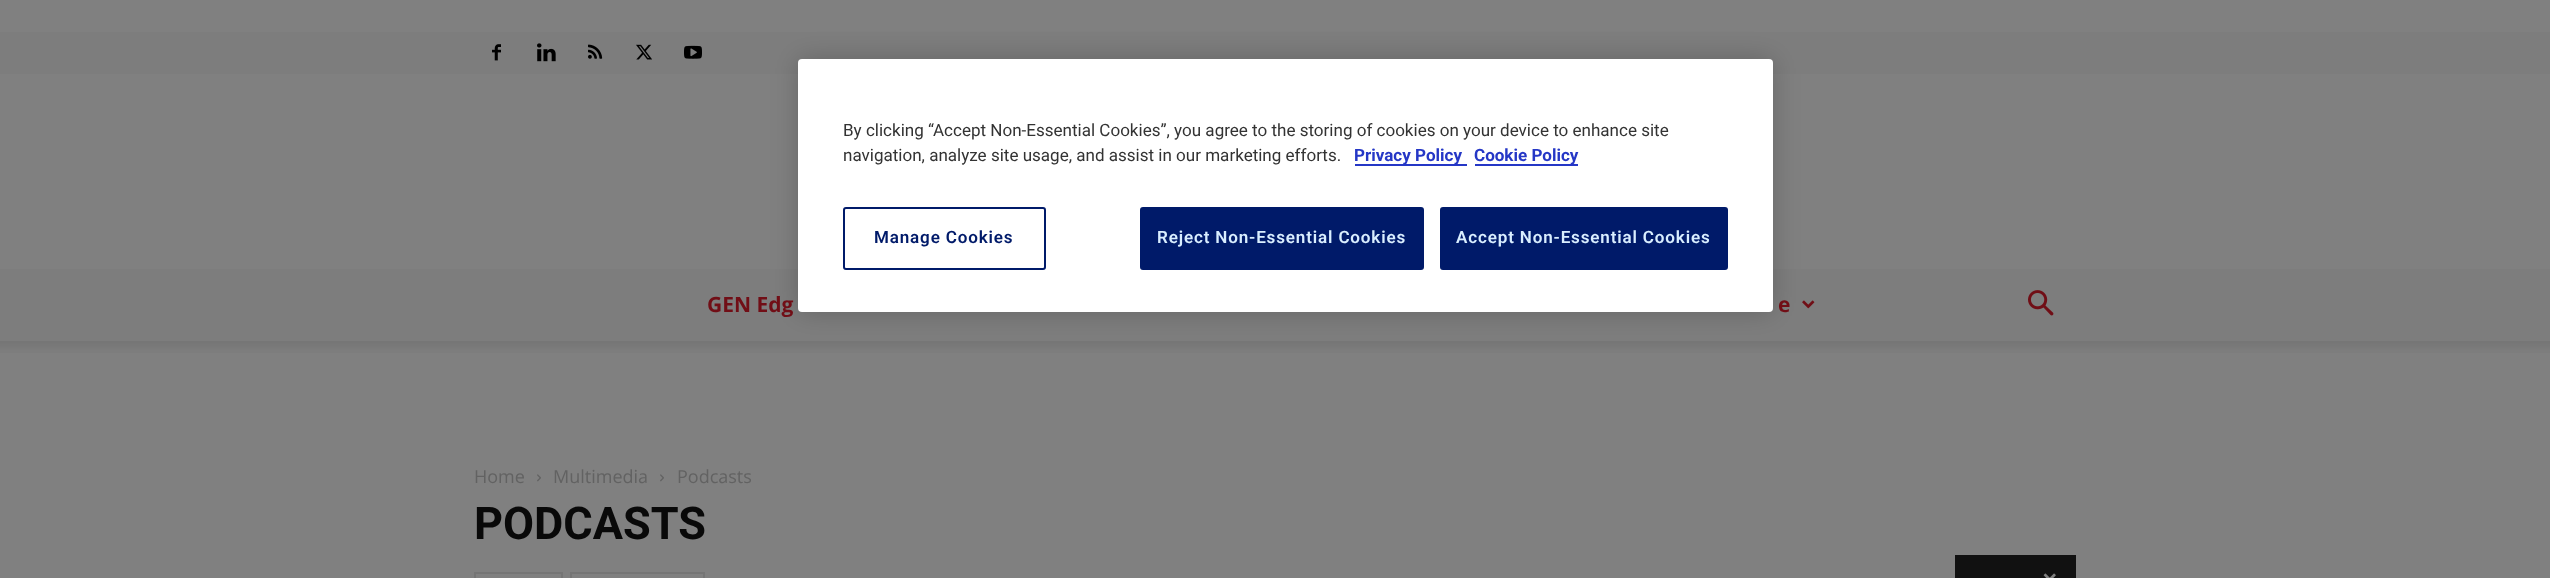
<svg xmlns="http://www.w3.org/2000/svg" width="2550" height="578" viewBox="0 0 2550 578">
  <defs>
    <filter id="blur1" x="-50%" y="-200%" width="200%" height="500%"><feGaussianBlur stdDeviation="13.5"/></filter>
  </defs>
  <rect width="100%" height="100%" fill="#808080"/>
  <rect x="0" y="32" width="2550" height="42" fill="#7d7d7d"/>
  <rect x="0" y="269" width="2550" height="72" fill="#7d7d7d"/>
  <image x="1802" y="300" width="13" height="9" href="img6.png"/>
  <image x="0" y="341" width="2550" height="12" href="img8.png"/>
  <rect x="798" y="59" width="975" height="253" rx="4" fill="#000000" fill-opacity="0.2" filter="url(#blur1)"/>
  <rect x="798" y="59" width="975" height="253" rx="4" fill="#ffffff"/>
  <text x="843" y="136" font-family="Roboto" font-size="17.05" fill="#333333">By clicking “Accept Non-Essential Cookies”, you agree to the storing of cookies on your device to enhance site</text>
  <text x="843" y="161" font-family="Roboto" font-size="17.05" fill="#333333">navigation, analyze site usage, and assist in our marketing efforts.</text>
  <rect x="1355" y="164" width="112" height="2" fill="#2537c6"/>
  <text x="1354" y="161" font-family="Roboto" font-size="17.05" font-weight="bold" fill="#2537c6">Privacy Policy</text>
  <rect x="1475" y="164" width="103" height="2" fill="#2537c6"/>
  <text x="1474" y="161" font-family="Roboto" font-size="17.05" font-weight="bold" fill="#2537c6">Cookie Policy</text>
  <rect x="844" y="208" width="201" height="61" rx="2" fill="none" stroke="#001a69" stroke-width="2"/>
  <text x="874" y="243" font-family="Roboto" font-size="17.05" font-weight="600" letter-spacing="0.85" fill="#001a69">Manage Cookies</text>
  <rect x="1141" y="208" width="282" height="61" rx="2" fill="#001a69" stroke="#001a69" stroke-width="2"/>
  <text x="1157" y="243" font-family="Roboto" font-size="17.05" font-weight="600" letter-spacing="0.85" fill="#d9eeff">Reject Non-Essential Cookies</text>
  <rect x="1441" y="208" width="286" height="61" rx="2" fill="#001a69" stroke="#001a69" stroke-width="2"/>
  <text x="1456" y="243" font-family="Roboto" font-size="17.05" font-weight="600" letter-spacing="0.85" fill="#d9eeff">Accept Non-Essential Cookies</text>
  <image x="492" y="44" width="9" height="17" href="img1.png"/>
  <image x="537" y="43" width="19" height="19" href="img2.png"/>
  <image x="588" y="44" width="15" height="15" href="img3.png"/>
  <image x="636" y="44" width="16" height="16" href="img4.png"/>
  <image x="684" y="45" width="18" height="14" href="img5.png"/>
  <text x="707" y="312" font-family="Open Sans" font-size="21" font-weight="bold" fill="#710e16">GEN Edg</text>
  <text x="1778" y="312" font-family="Open Sans" font-size="21" font-weight="bold" fill="#710e16">e</text>
  <image x="2028" y="290" width="26" height="26" href="img7.png"/>
  <text x="474" y="483" font-family="Open Sans" font-size="18" fill="#626262">Home</text>
  <image x="537" y="474" width="4" height="8" href="img9.png"/>
  <text x="553" y="483" font-family="Open Sans" font-size="18" fill="#626262">Multimedia</text>
  <image x="660" y="474" width="4" height="8" href="img9.png"/>
  <text x="677" y="483" font-family="Open Sans" font-size="18" fill="#626262">Podcasts</text>
  <text x="474" y="539" font-family="Roboto" font-size="45" font-weight="bold" fill="#090909">PODCASTS</text>
  <rect x="475" y="573" width="87" height="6" fill="none" stroke="#757575" stroke-width="2"/>
  <rect x="571" y="573" width="133" height="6" fill="none" stroke="#757575" stroke-width="2"/>
  <rect x="1955" y="555" width="121" height="23" fill="#111111"/>
  <image x="2043" y="573" width="13" height="5" href="img10.png"/>
</svg>
